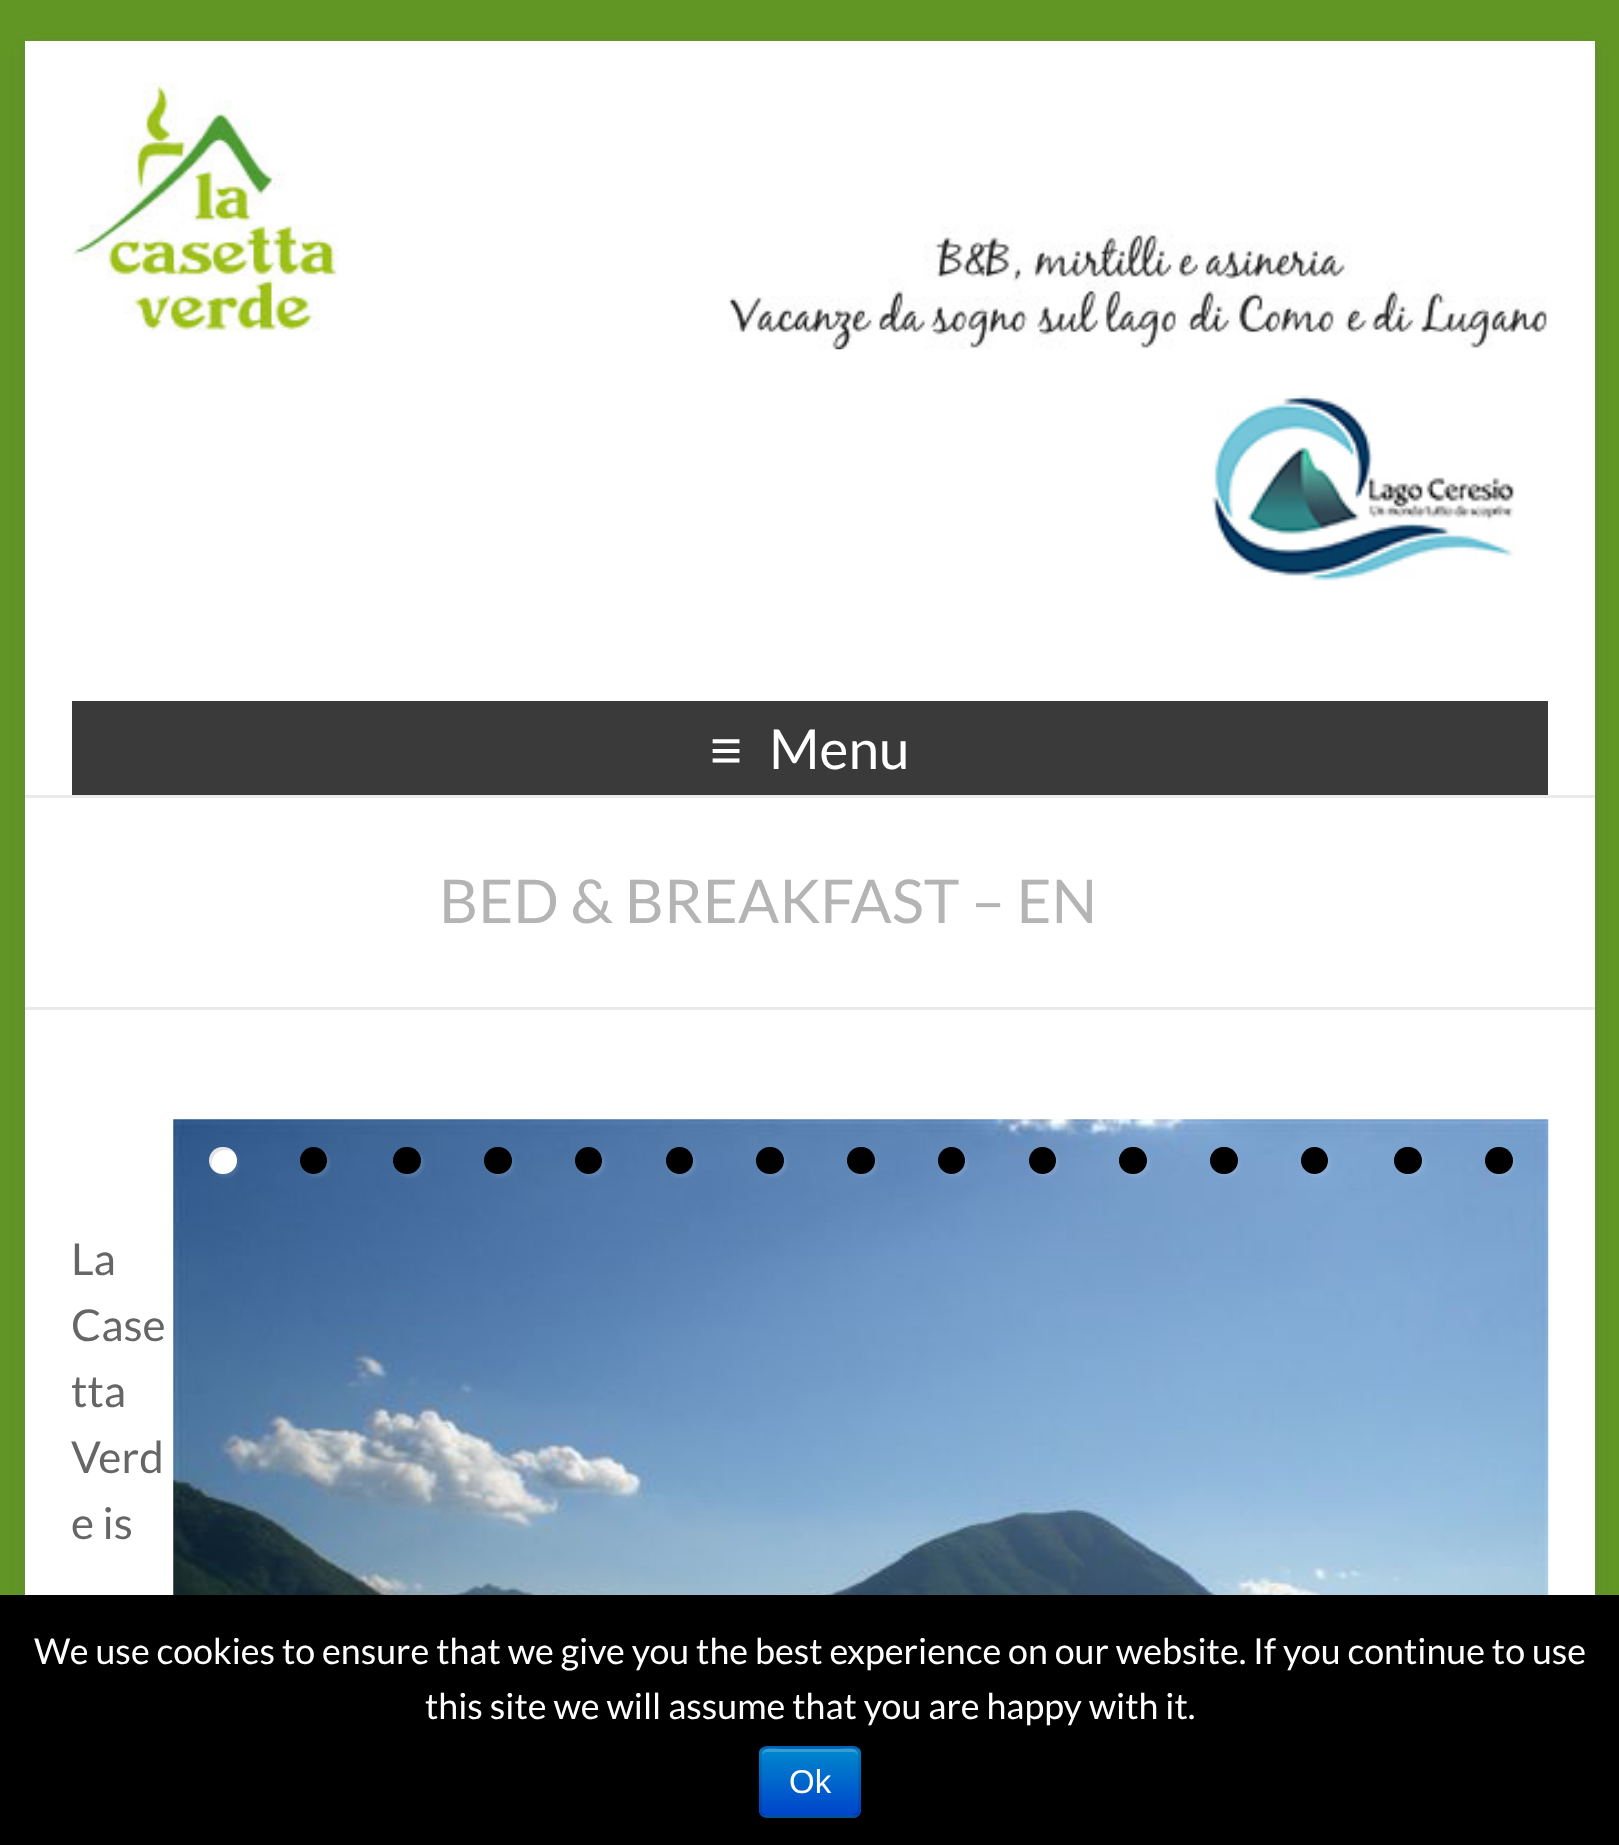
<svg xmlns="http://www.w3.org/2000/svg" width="1619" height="1845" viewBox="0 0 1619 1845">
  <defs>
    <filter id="blur1" x="-50%" y="-200%" width="200%" height="500%"><feGaussianBlur stdDeviation="8"/></filter>
    <filter id="blur2" x="-50%" y="-200%" width="200%" height="500%"><feGaussianBlur stdDeviation="1.5"/></filter>
    <clipPath id="clip1"><rect x="759" y="1746" width="102" height="72" rx="8"/></clipPath>
    <linearGradient id="g1" gradientUnits="userSpaceOnUse" x1="810" y1="1749" x2="810" y2="1815"><stop offset="0" stop-color="#0088cc"/><stop offset="1" stop-color="#0044cc"/></linearGradient>
  </defs>
  <rect width="100%" height="100%" fill="#619624"/>
  <rect x="25" y="47" width="1570" height="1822" fill="#646464" fill-opacity="0.3" filter="url(#blur1)"/>
  <rect x="25" y="41" width="1570" height="1554" fill="#ffffff"/>
  <rect x="25" y="795" width="1570" height="3" fill="#eaeaea"/>
  <image x="71" y="82" width="1476" height="268" href="img1.png"/>
  <image x="1212" y="395" width="304" height="186" href="img2.png"/>
  <rect x="72" y="701" width="1476" height="94" fill="#3a3a3a"/>
  <text x="710" y="769" font-family="Liberation Sans" font-size="55" fill="#ffffff">≡</text>
  <text x="769" y="769" font-family="Lato" font-size="55" fill="#ffffff">Menu</text>
  <rect x="25" y="1007" width="1570" height="3" fill="#eaeaea"/>
  <text x="439" y="923" font-family="Lato" font-size="60.5" fill="#b4b4b4">BED &amp; BREAKFAST – EN</text>
  <text x="71" y="1275" font-family="Lato" font-size="44" fill="#666666">La</text>
  <text x="71" y="1341" font-family="Lato" font-size="44" fill="#666666">Case</text>
  <text x="71" y="1407" font-family="Lato" font-size="44" fill="#666666">tta</text>
  <text x="71" y="1473" font-family="Lato" font-size="44" fill="#666666">Verd</text>
  <text x="71" y="1539" font-family="Lato" font-size="44" fill="#666666">e is</text>
  <image x="173" y="1119" width="1376" height="476" href="img3.png"/>
  <rect x="212" y="1150" width="27" height="27" rx="13.5" fill="#ffffff" fill-opacity="0.1" filter="url(#blur2)"/>
  <rect x="209" y="1147" width="28" height="27" rx="13.5" fill="#ffffff"/>
  <path d="M226 1150C229.5 1150 232.5 1151 234.5 1152.5C230 1146.5 221 1145 215 1149.5C207.5 1154.5 207 1165 214 1171C209 1163 213 1150 226 1150Z" fill="#000000" fill-opacity="0.1"/>
  <rect x="303" y="1150" width="27" height="27" rx="13.5" fill="#ffffff" fill-opacity="0.1" filter="url(#blur2)"/>
  <circle cx="313.5" cy="1160.5" r="13.5" fill="#000000"/>
  <path d="M316 1150C319.5 1150 322.5 1151 324.5 1152.5C320 1146 310 1145 304 1151C298.5 1156 299 1165 304 1170C300 1162 304 1150 316 1150Z" fill="#000000" fill-opacity="0.1"/>
  <rect x="396" y="1150" width="28" height="27" rx="13.5" fill="#ffffff" fill-opacity="0.1" filter="url(#blur2)"/>
  <rect x="393" y="1147" width="28" height="27" rx="13.5" fill="#000000"/>
  <path d="M410 1150C413.5 1150 416.5 1151 418.5 1152.5C413.5 1146 403 1145 397 1151C391 1157 392 1167 399 1172C393.5 1164 397 1150 410 1150Z" fill="#000000" fill-opacity="0.1"/>
  <rect x="487" y="1150" width="27" height="27" rx="13.5" fill="#ffffff" fill-opacity="0.1" filter="url(#blur2)"/>
  <rect x="484" y="1147" width="28" height="27" rx="13.5" fill="#000000"/>
  <path d="M500 1150C504.5 1150 508 1151.5 510 1153.5C506 1147 496.5 1145 490 1149.5C483 1154 482 1164.5 488 1170C484 1162 488 1150 500 1150Z" fill="#000000" fill-opacity="0.1"/>
  <rect x="578" y="1150" width="27" height="27" rx="13.5" fill="#ffffff" fill-opacity="0.1" filter="url(#blur2)"/>
  <circle cx="588.5" cy="1160.5" r="13.5" fill="#000000"/>
  <path d="M591 1150C594.5 1150 597.5 1151 599.5 1152.5C595 1146 585 1145 579 1151C573.5 1156 574 1165 579 1170C575 1162 579 1150 591 1150Z" fill="#000000" fill-opacity="0.1"/>
  <rect x="668" y="1150" width="28" height="27" rx="13.5" fill="#ffffff" fill-opacity="0.1" filter="url(#blur2)"/>
  <circle cx="679.5" cy="1160.5" r="13.5" fill="#000000"/>
  <path d="M682 1150C685.5 1150 688.5 1151 690.5 1152.5C686 1146 676 1145 670 1151C664.5 1156 665 1165 670 1170C666 1162 670 1150 682 1150Z" fill="#000000" fill-opacity="0.1"/>
  <rect x="759" y="1150" width="28" height="27" rx="13.5" fill="#ffffff" fill-opacity="0.1" filter="url(#blur2)"/>
  <rect x="756" y="1147" width="28" height="27" rx="13.5" fill="#000000"/>
  <path d="M773 1150C776.5 1150 779.5 1151 781.5 1152.5C776.5 1146 766 1145 760 1151C754 1157 755 1167 762 1172C756.5 1164 760 1150 773 1150Z" fill="#000000" fill-opacity="0.1"/>
  <rect x="850" y="1150" width="27" height="27" rx="13.5" fill="#ffffff" fill-opacity="0.1" filter="url(#blur2)"/>
  <rect x="847" y="1147" width="28" height="27" rx="13.5" fill="#000000"/>
  <path d="M864 1150C867.5 1150 870.5 1151 872.5 1152.5C868 1146.5 859 1145 853 1149.5C845.5 1154.5 845 1165 852 1171C847 1163 851 1150 864 1150Z" fill="#000000" fill-opacity="0.1"/>
  <rect x="941" y="1150" width="27" height="27" rx="13.5" fill="#ffffff" fill-opacity="0.1" filter="url(#blur2)"/>
  <circle cx="951.5" cy="1160.5" r="13.5" fill="#000000"/>
  <path d="M954 1150C957.5 1150 960.5 1151 962.5 1152.5C958 1146 948 1145 942 1151C936.5 1156 937 1165 942 1170C938 1162 942 1150 954 1150Z" fill="#000000" fill-opacity="0.1"/>
  <rect x="1031" y="1150" width="28" height="27" rx="13.5" fill="#ffffff" fill-opacity="0.1" filter="url(#blur2)"/>
  <circle cx="1042.5" cy="1160.5" r="13.5" fill="#000000"/>
  <path d="M1045 1150C1048.5 1150 1051.5 1151 1053.5 1152.5C1049 1146 1039 1145 1033 1151C1027.5 1156 1028 1165 1033 1170C1029 1162 1033 1150 1045 1150Z" fill="#000000" fill-opacity="0.1"/>
  <rect x="1122" y="1150" width="28" height="27" rx="13.5" fill="#ffffff" fill-opacity="0.1" filter="url(#blur2)"/>
  <rect x="1119" y="1147" width="28" height="27" rx="13.5" fill="#000000"/>
  <path d="M1136 1150C1139.5 1150 1142.5 1151 1144.5 1152.5C1139.5 1146 1129 1145 1123 1151C1117 1157 1118 1167 1125 1172C1119.5 1164 1123 1150 1136 1150Z" fill="#000000" fill-opacity="0.1"/>
  <rect x="1213" y="1150" width="27" height="27" rx="13.5" fill="#ffffff" fill-opacity="0.1" filter="url(#blur2)"/>
  <rect x="1210" y="1147" width="28" height="27" rx="13.5" fill="#000000"/>
  <path d="M1226 1150C1230.5 1150 1234 1151.5 1236 1153.5C1232 1147 1222.5 1145 1216 1149.5C1209 1154 1208 1164.5 1214 1170C1210 1162 1214 1150 1226 1150Z" fill="#000000" fill-opacity="0.1"/>
  <rect x="1304" y="1150" width="27" height="27" rx="13.5" fill="#ffffff" fill-opacity="0.1" filter="url(#blur2)"/>
  <circle cx="1314.5" cy="1160.5" r="13.5" fill="#000000"/>
  <path d="M1317 1150C1320.5 1150 1323.5 1151 1325.5 1152.5C1321 1146 1311 1145 1305 1151C1299.5 1156 1300 1165 1305 1170C1301 1162 1305 1150 1317 1150Z" fill="#000000" fill-opacity="0.1"/>
  <rect x="1397" y="1150" width="28" height="27" rx="13.5" fill="#ffffff" fill-opacity="0.1" filter="url(#blur2)"/>
  <rect x="1394" y="1147" width="28" height="27" rx="13.5" fill="#000000"/>
  <path d="M1411 1150C1414.5 1150 1417.5 1151 1419.5 1152.5C1414.5 1146 1404 1145 1398 1151C1392 1157 1393 1167 1400 1172C1394.5 1164 1398 1150 1411 1150Z" fill="#000000" fill-opacity="0.1"/>
  <rect x="1488" y="1150" width="27" height="27" rx="13.5" fill="#ffffff" fill-opacity="0.1" filter="url(#blur2)"/>
  <rect x="1485" y="1147" width="28" height="27" rx="13.5" fill="#000000"/>
  <path d="M1502 1150C1505.5 1150 1508.5 1151 1510.5 1152.5C1506 1146.5 1497 1145 1491 1149.5C1483.5 1154.5 1483 1165 1490 1171C1485 1163 1489 1150 1502 1150Z" fill="#000000" fill-opacity="0.1"/>
  <rect x="0" y="1595" width="1619" height="250" fill="#000000"/>
  <text x="34" y="1664" font-family="Lato" font-size="35.75" fill="#ffffff">We use cookies to ensure that we give you the best experience on our website. If you continue to use</text>
  <text x="425" y="1719" font-family="Lato" font-size="35.75" fill="#ffffff">this site we will assume that you are happy with it.</text>
  <rect x="759" y="1746" width="102" height="72" rx="8" fill="#006dcc"/>
  <g clip-path="url(#clip1)">
    <rect x="759" y="1749" width="102" height="66" fill="url(#g1)"/>
  </g>
  <path d="M767 1752H852C856 1752 858 1754 858 1757C858 1745 847 1749 838 1749H782C773 1749 762 1745 762 1757C762 1754 764 1752 767 1752Z" fill="#ffffff" fill-opacity="0.2"/>
  <path d="M857.5 1814.5C856 1815.5 854.5 1816.5 852.5 1816.5H767C765.5 1816.5 763.5 1815.5 762.5 1814.5" fill="none" stroke="#000000" stroke-opacity="0.25" stroke-width="2.8"/>
  <path d="M762.5 1814.5C761 1813 760.5 1811.5 760.5 1809.5V1754.5C760.5 1752.5 761 1751 762.5 1749.5C763.5 1748.5 765.5 1747.5 767 1747.5H852.5C854.5 1747.5 856 1748.5 857.5 1749.5C858.5 1751 859.5 1752.5 859.5 1754.5V1809.5C859.5 1811.5 858.5 1813 857.5 1814.5" fill="none" stroke="#000000" stroke-opacity="0.1" stroke-width="2.8"/>
  <text x="789" y="1793" font-family="Liberation Sans" font-size="33" fill="#ffffff">Ok</text>
</svg>
